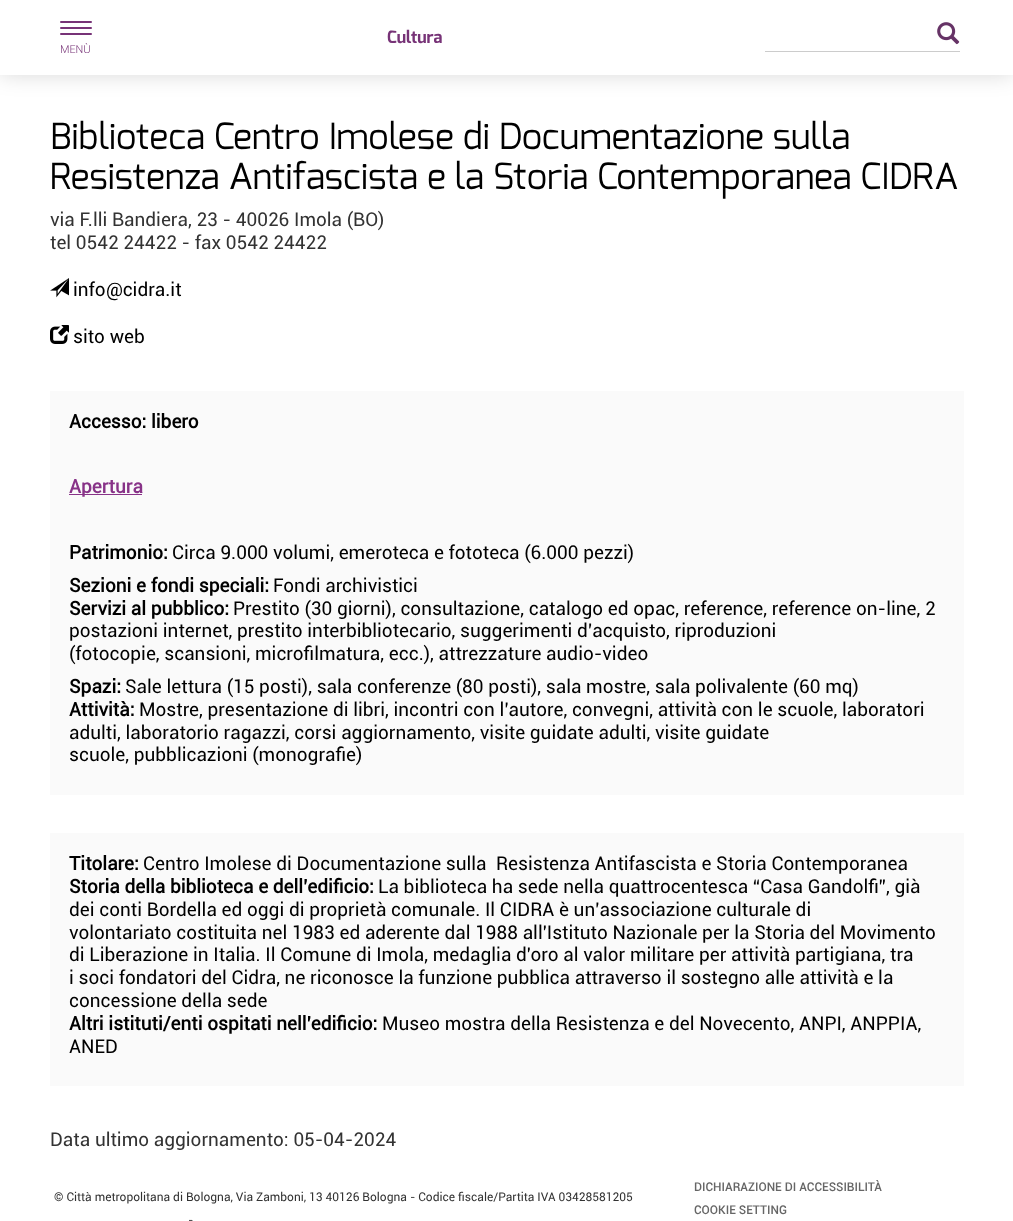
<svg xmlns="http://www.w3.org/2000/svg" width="1013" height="1221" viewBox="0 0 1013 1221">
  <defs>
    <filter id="blur1" x="-50%" y="-200%" width="200%" height="500%"><feGaussianBlur stdDeviation="10.5"/></filter>
  </defs>
  <rect width="100%" height="100%" fill="#ffffff"/>
  <rect x="0" y="5" width="1013" height="70" fill="#000000" fill-opacity="0.15" filter="url(#blur1)"/>
  <rect x="0" y="0" width="1013" height="75" fill="#ffffff"/>
  <text x="387" y="43" font-family="Exo" font-size="17" font-weight="bold" fill="#773377">Cultura</text>
  <image x="937" y="22" width="23" height="23" href="img1.png"/>
  <rect x="765" y="51" width="195" height="1" fill="#cccccc"/>
  <rect x="60" y="21" width="32" height="2" rx="1" fill="#773377"/>
  <rect x="60" y="27" width="32" height="2" rx="1" fill="#773377"/>
  <rect x="60" y="33" width="32" height="2" rx="1" fill="#773377"/>
  <text x="60" y="53" font-family="Roboto" font-size="11" font-weight="300" fill="#773377">MENÙ</text>
  <text x="50" y="149" font-family="Exo" font-size="36" fill="#000000">Biblioteca Centro Imolese di Documentazione sulla</text>
  <text x="50" y="189" font-family="Exo" font-size="36" fill="#000000">Resistenza Antifascista e la Storia Contemporanea CIDRA</text>
  <text x="50" y="226" font-family="Roboto" font-size="19" fill="#333333">via F.lli Bandiera, 23 - 40026 Imola (BO)</text>
  <text x="50" y="249" font-family="Roboto" font-size="19" fill="#333333">tel 0542 24422 - fax 0542 24422</text>
  <image x="50" y="278" width="19" height="20" href="img2.png"/>
  <text x="73" y="296" font-family="Roboto" font-size="19" fill="#000000">info@cidra.it</text>
  <image x="50" y="325" width="19" height="19" href="img3.png"/>
  <text x="73" y="343" font-family="Roboto" font-size="19" fill="#000000">sito web</text>
  <rect x="50" y="391" width="914" height="404" fill="#fafafa"/>
  <text x="69" y="428" font-family="Roboto" font-size="19" font-weight="bold" fill="#000000">Accesso: libero</text>
  <rect x="69" y="494" width="73" height="1" fill="#883388"/>
  <text x="69" y="493" font-family="Roboto" font-size="19" font-weight="bold" fill="#883388">Apertura</text>
  <text x="69" y="559" font-family="Roboto" font-size="19" font-weight="bold" fill="#000000">Patrimonio:</text>
  <text x="172" y="559" font-family="Roboto" font-size="19" fill="#000000">Circa 9.000 volumi, emeroteca e fototeca (6.000 pezzi)</text>
  <text x="69" y="592" font-family="Roboto" font-size="19" font-weight="bold" fill="#000000">Sezioni e fondi speciali:</text>
  <text x="273" y="592" font-family="Roboto" font-size="19" fill="#000000">Fondi archivistici</text>
  <text x="69" y="615" font-family="Roboto" font-size="19" font-weight="bold" fill="#000000">Servizi al pubblico:</text>
  <text x="233" y="615" font-family="Roboto" font-size="19" fill="#000000">Prestito (30 giorni), consultazione, catalogo ed opac, reference, reference on-line, 2</text>
  <text x="69" y="637" font-family="Roboto" font-size="19" fill="#000000">postazioni internet, prestito interbibliotecario, suggerimenti d’acquisto, riproduzioni</text>
  <text x="69" y="660" font-family="Roboto" font-size="19" fill="#000000">(fotocopie, scansioni, microfilmatura, ecc.), attrezzature audio-video</text>
  <text x="69" y="693" font-family="Roboto" font-size="19" font-weight="bold" fill="#000000">Spazi:</text>
  <text x="125" y="693" font-family="Roboto" font-size="19" fill="#000000">Sale lettura (15 posti), sala conferenze (80 posti), sala mostre, sala polivalente (60 mq)</text>
  <text x="69" y="716" font-family="Roboto" font-size="19" font-weight="bold" fill="#000000">Attività:</text>
  <text x="139" y="716" font-family="Roboto" font-size="19" fill="#000000">Mostre, presentazione di libri, incontri con l’autore, convegni, attività con le scuole, laboratori</text>
  <text x="69" y="739" font-family="Roboto" font-size="19" fill="#000000">adulti, laboratorio ragazzi, corsi aggiornamento, visite guidate adulti, visite guidate</text>
  <text x="69" y="761" font-family="Roboto" font-size="19" fill="#000000">scuole, pubblicazioni (monografie)</text>
  <rect x="50" y="833" width="914" height="253" fill="#fafafa"/>
  <text x="69" y="870" font-family="Roboto" font-size="19" font-weight="bold" fill="#000000">Titolare:</text>
  <text x="143" y="870" font-family="Roboto" font-size="19" fill="#000000" xml:space="preserve">Centro Imolese di Documentazione sulla  Resistenza Antifascista e Storia Contemporanea</text>
  <text x="69" y="893" font-family="Roboto" font-size="19" font-weight="bold" fill="#000000">Storia della biblioteca e dell’edificio:</text>
  <text x="378" y="893" font-family="Roboto" font-size="19" fill="#000000">La biblioteca ha sede nella quattrocentesca “Casa Gandolfi”, già</text>
  <text x="69" y="916" font-family="Roboto" font-size="19" fill="#000000">dei conti Bordella ed oggi di proprietà comunale. Il CIDRA è un’associazione culturale di</text>
  <text x="69" y="939" font-family="Roboto" font-size="19" fill="#000000">volontariato costituita nel 1983 ed aderente dal 1988 all'Istituto Nazionale per la Storia del Movimento</text>
  <text x="69" y="961" font-family="Roboto" font-size="19" fill="#000000">di Liberazione in Italia. Il Comune di Imola, medaglia d'oro al valor militare per attività partigiana, tra</text>
  <text x="69" y="984" font-family="Roboto" font-size="19" fill="#000000">i soci fondatori del Cidra, ne riconosce la funzione pubblica attraverso il sostegno alle attività e la</text>
  <text x="69" y="1007" font-family="Roboto" font-size="19" fill="#000000">concessione della sede</text>
  <text x="69" y="1030" font-family="Roboto" font-size="19" font-weight="bold" fill="#000000">Altri istituti/enti ospitati nell’edificio:</text>
  <text x="382" y="1030" font-family="Roboto" font-size="19" fill="#000000">Museo mostra della Resistenza e del Novecento, ANPI, ANPPIA,</text>
  <text x="69" y="1053" font-family="Roboto" font-size="19" fill="#000000">ANED</text>
  <text x="50" y="1146" font-family="Roboto" font-size="19" fill="#333333">Data ultimo aggiornamento: 05-04-2024</text>
  <text x="54" y="1201" font-family="Roboto" font-size="12" fill="#333333">© Città metropolitana di Bologna, Via Zamboni, 13 40126 Bologna - Codice fiscale/Partita IVA 03428581205</text>
  <text x="188" y="1224" font-family="Roboto" font-size="12" fill="#333333">-</text>
  <text x="694" y="1191" font-family="Roboto" font-size="12" font-weight="500" fill="#666666">DICHIARAZIONE DI ACCESSIBILITÀ</text>
  <text x="694" y="1214" font-family="Roboto" font-size="12" font-weight="500" fill="#666666">COOKIE SETTING</text>
</svg>
